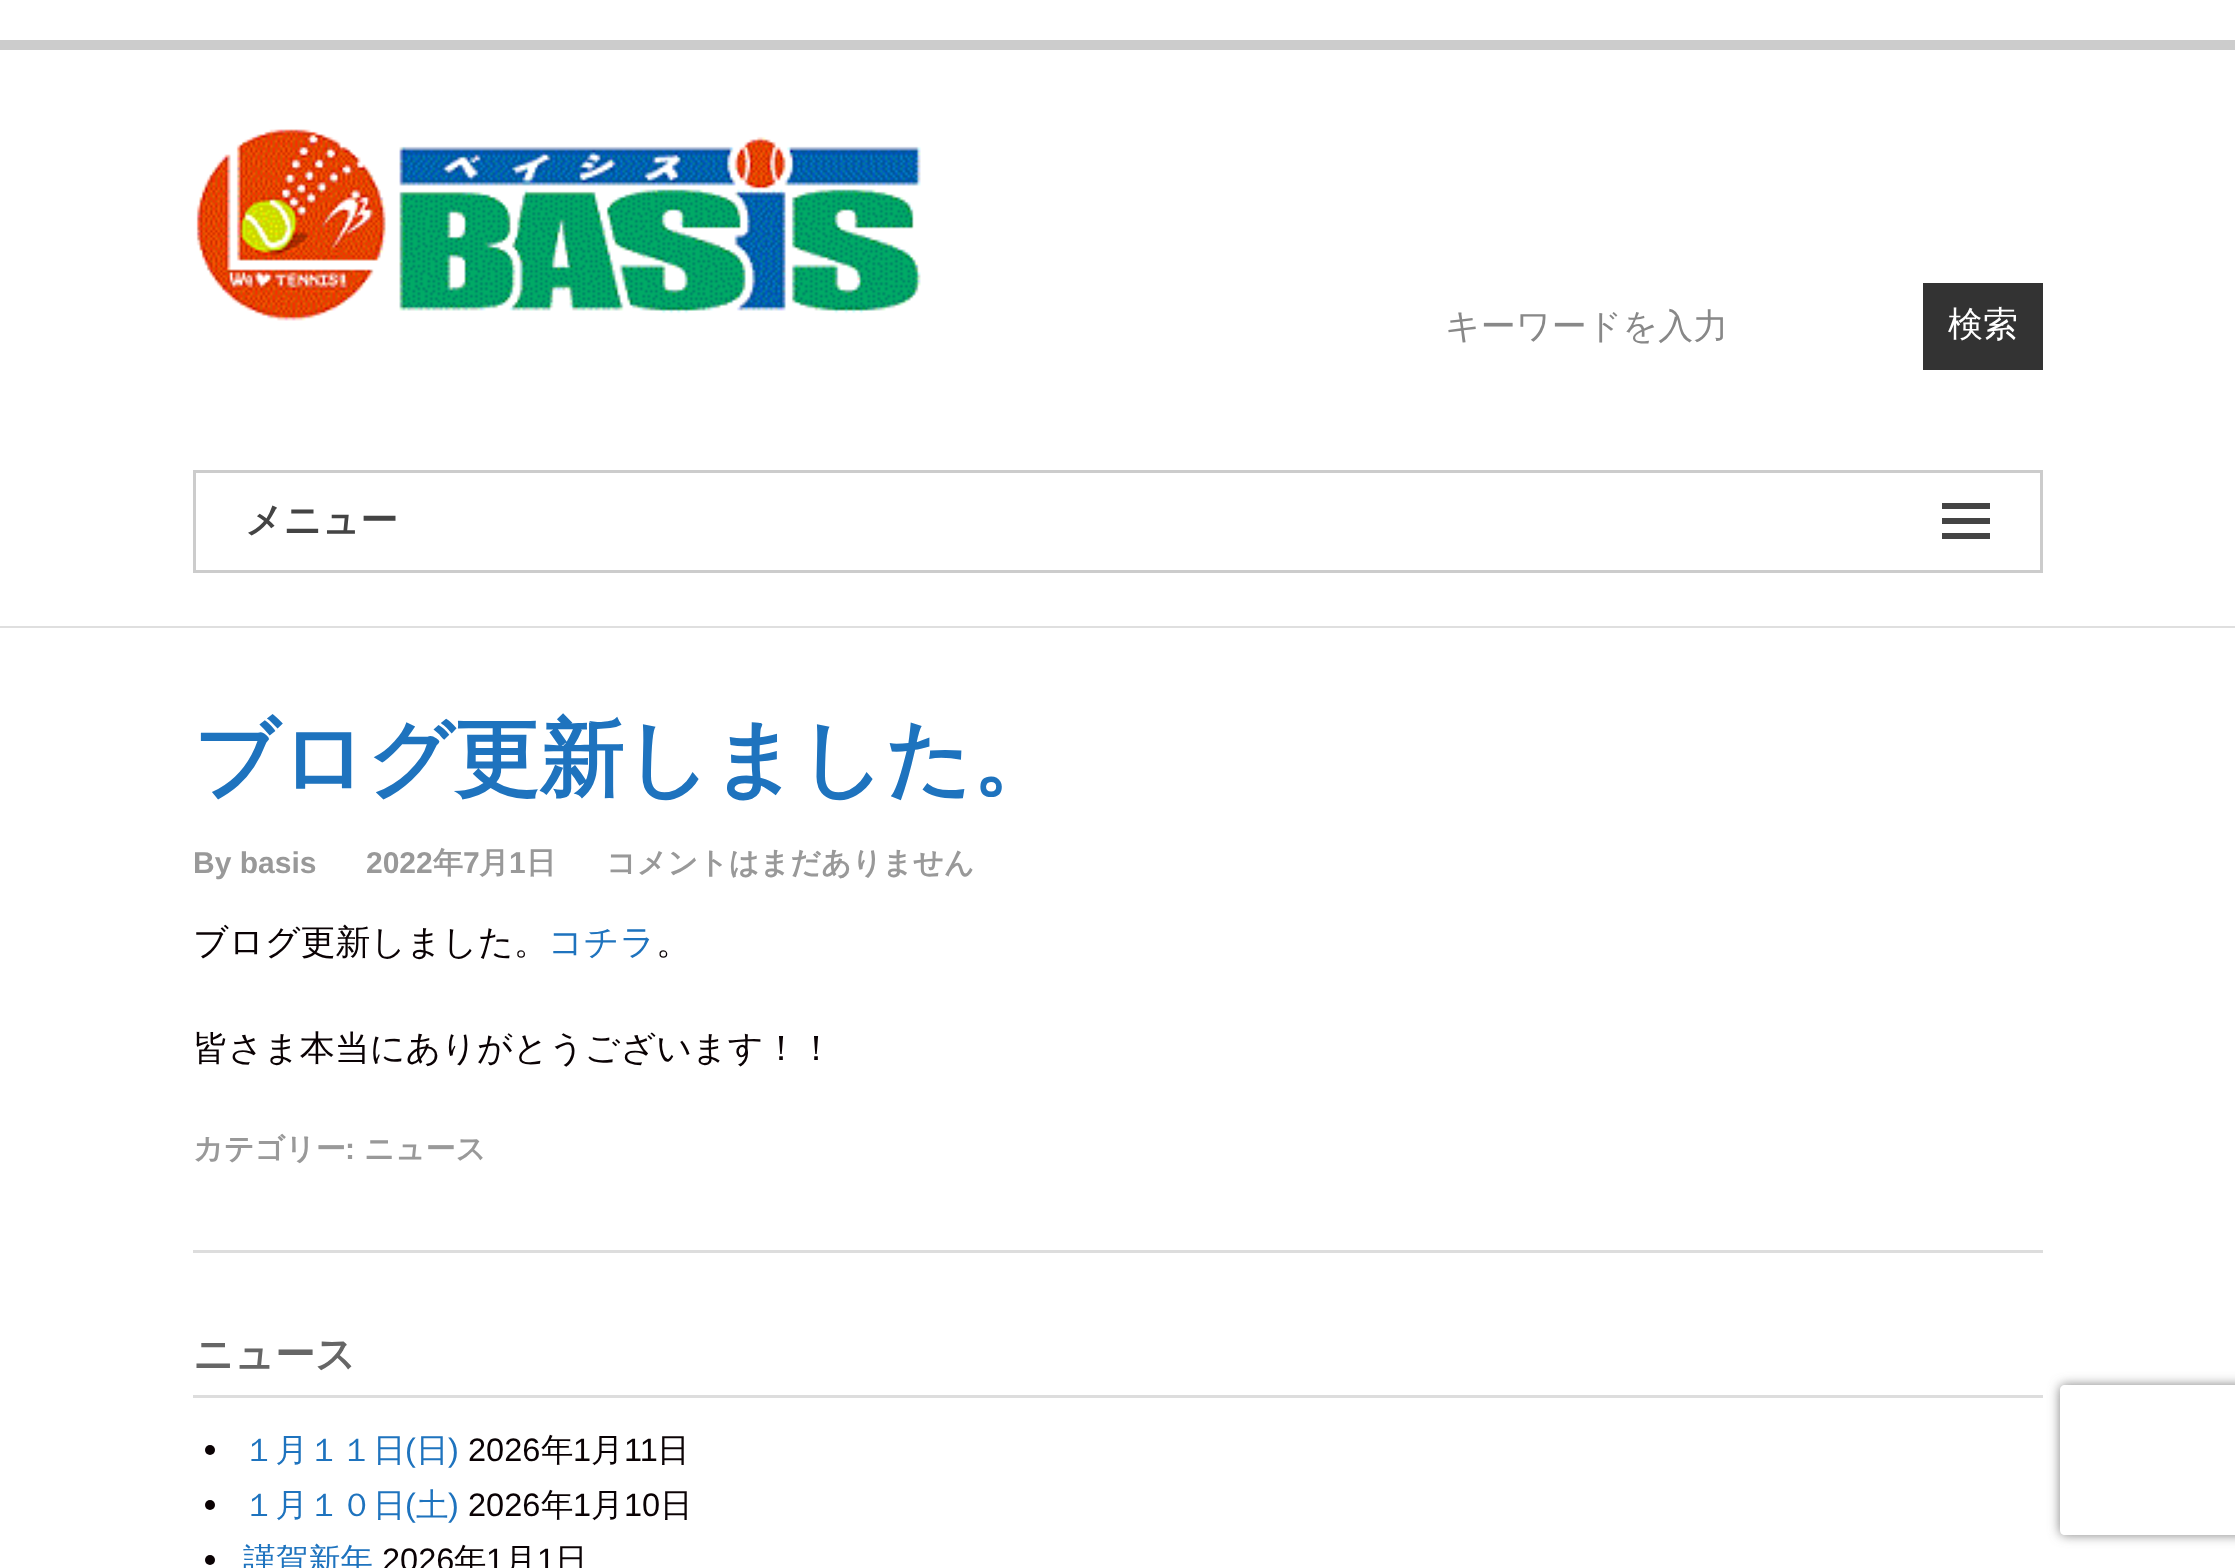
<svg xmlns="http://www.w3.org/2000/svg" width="2235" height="1568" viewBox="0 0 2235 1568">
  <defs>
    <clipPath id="clip1"><path d="M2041 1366H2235V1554H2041ZM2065 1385H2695C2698 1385 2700 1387 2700 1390V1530C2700 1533 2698 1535 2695 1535H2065C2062 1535 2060 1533 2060 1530V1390C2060 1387 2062 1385 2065 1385Z" clip-rule="evenodd"/></clipPath>
    <filter id="blur1" x="-50%" y="-200%" width="200%" height="500%"><feGaussianBlur stdDeviation="6"/></filter>
  </defs>
  <rect width="100%" height="100%" fill="#ffffff"/>
  <rect x="0" y="626" width="2235" height="2" fill="#dfdfdf"/>
  <rect x="0" y="40" width="2235" height="10" fill="#cccccc"/>
  <image x="196" y="129" width="725" height="192" href="img1.png"/>
  <text x="1445" y="338" font-family="WenQuanYi Zen Hei" font-size="35" font-weight="500" fill="#888888">キーワードを入力</text>
  <rect x="1923" y="283" width="120" height="87" fill="#333333"/>
  <text x="1948" y="336" font-family="WenQuanYi Zen Hei" font-size="35" font-weight="500" fill="#ffffff">検索</text>
  <rect x="194.5" y="471.5" width="1847" height="100" fill="none" stroke="#cccccc" stroke-width="3"/>
  <text x="245" y="533" font-family="WenQuanYi Zen Hei" font-size="37.5" font-weight="bold" fill="#444444">メニュー</text>
  <path d="M1942 539V533H1990V539ZM1942 503H1990V509H1942ZM1942 524V518H1990V524Z" fill="#444444"/>
  <rect x="193" y="1250" width="1850" height="3" fill="#dddddd"/>
  <text x="193" y="788" font-family="WenQuanYi Zen Hei" font-size="85" font-weight="bold" fill="#1e73be">ブログ更新しました。</text>
  <text x="193" y="873" font-family="Liberation Sans" font-size="30" font-weight="bold" fill="#999999">By basis</text>
  <text x="366" y="873" font-family="Liberation Sans" font-size="30" font-weight="bold" fill="#999999">2022</text>
  <text x="433" y="873" font-family="WenQuanYi Zen Hei" font-size="30" font-weight="bold" fill="#999999">年</text>
  <text x="463" y="873" font-family="Liberation Sans" font-size="30" font-weight="bold" fill="#999999">7</text>
  <text x="479" y="873" font-family="WenQuanYi Zen Hei" font-size="30" font-weight="bold" fill="#999999">月</text>
  <text x="509" y="873" font-family="Liberation Sans" font-size="30" font-weight="bold" fill="#999999">1</text>
  <text x="526" y="873" font-family="WenQuanYi Zen Hei" font-size="30" font-weight="bold" fill="#999999">日</text>
  <text x="606" y="873" font-family="WenQuanYi Zen Hei" font-size="30" font-weight="bold" fill="#999999">コメントはまだありません</text>
  <text x="193" y="954" font-family="WenQuanYi Zen Hei" font-size="35" font-weight="500" fill="#0a0204">ブログ更新しました。</text>
  <text x="548" y="954" font-family="WenQuanYi Zen Hei" font-size="35" font-weight="500" fill="#1e73be">コチラ</text>
  <text x="656" y="954" font-family="WenQuanYi Zen Hei" font-size="35" font-weight="500" fill="#0a0204">。</text>
  <text x="193" y="1060" font-family="WenQuanYi Zen Hei" font-size="35" font-weight="500" fill="#0a0204">皆さま本当にありがとうございます！！</text>
  <text x="193" y="1159" font-family="WenQuanYi Zen Hei" font-size="30" font-weight="bold" fill="#999999">カテゴリー</text>
  <text x="345" y="1159" font-family="Liberation Sans" font-size="30" font-weight="bold" fill="#999999">:</text>
  <text x="364" y="1159" font-family="WenQuanYi Zen Hei" font-size="30" font-weight="bold" fill="#999999">ニュース</text>
  <rect x="193" y="1395" width="1850" height="3" fill="#dddddd"/>
  <text x="193" y="1368" font-family="WenQuanYi Zen Hei" font-size="40" font-weight="bold" fill="#666666">ニュース</text>
  <circle cx="210" cy="1450" r="5" fill="#0a0204"/>
  <text x="243" y="1461" font-family="WenQuanYi Zen Hei" font-size="32.5" font-weight="500" fill="#1e73be">１月１１日</text>
  <text x="405" y="1461" font-family="Liberation Sans" font-size="32.5" fill="#1e73be">(</text>
  <text x="416" y="1461" font-family="WenQuanYi Zen Hei" font-size="32.5" font-weight="500" fill="#1e73be">日</text>
  <text x="448" y="1461" font-family="Liberation Sans" font-size="32.5" fill="#1e73be">)</text>
  <text x="468" y="1461" font-family="Liberation Sans" font-size="32.5" fill="#0a0204">2026</text>
  <text x="541" y="1461" font-family="WenQuanYi Zen Hei" font-size="32.5" font-weight="500" fill="#0a0204">年</text>
  <text x="573" y="1461" font-family="Liberation Sans" font-size="32.5" fill="#0a0204">1</text>
  <text x="591" y="1461" font-family="WenQuanYi Zen Hei" font-size="32.5" font-weight="500" fill="#0a0204">月</text>
  <text x="624" y="1461" font-family="Liberation Sans" font-size="32.5" fill="#0a0204">11</text>
  <text x="657" y="1461" font-family="WenQuanYi Zen Hei" font-size="32.5" font-weight="500" fill="#0a0204">日</text>
  <circle cx="210" cy="1505" r="5" fill="#0a0204"/>
  <text x="243" y="1516" font-family="WenQuanYi Zen Hei" font-size="32.5" font-weight="500" fill="#1e73be">１月１０日</text>
  <text x="405" y="1516" font-family="Liberation Sans" font-size="32.5" fill="#1e73be">(</text>
  <text x="416" y="1516" font-family="WenQuanYi Zen Hei" font-size="32.5" font-weight="500" fill="#1e73be">土</text>
  <text x="448" y="1516" font-family="Liberation Sans" font-size="32.5" fill="#1e73be">)</text>
  <text x="468" y="1516" font-family="Liberation Sans" font-size="32.5" fill="#0a0204">2026</text>
  <text x="541" y="1516" font-family="WenQuanYi Zen Hei" font-size="32.5" font-weight="500" fill="#0a0204">年</text>
  <text x="573" y="1516" font-family="Liberation Sans" font-size="32.5" fill="#0a0204">1</text>
  <text x="591" y="1516" font-family="WenQuanYi Zen Hei" font-size="32.5" font-weight="500" fill="#0a0204">月</text>
  <text x="624" y="1516" font-family="Liberation Sans" font-size="32.5" fill="#0a0204">10</text>
  <text x="660" y="1516" font-family="WenQuanYi Zen Hei" font-size="32.5" font-weight="500" fill="#0a0204">日</text>
  <circle cx="210" cy="1560" r="5" fill="#0a0204"/>
  <text x="243" y="1571" font-family="WenQuanYi Zen Hei" font-size="32.5" font-weight="500" fill="#1e73be">謹賀新年</text>
  <text x="382" y="1571" font-family="Liberation Sans" font-size="32.5" fill="#0a0204">2026</text>
  <text x="454" y="1571" font-family="WenQuanYi Zen Hei" font-size="32.5" font-weight="500" fill="#0a0204">年</text>
  <text x="486" y="1571" font-family="Liberation Sans" font-size="32.5" fill="#0a0204">1</text>
  <text x="504" y="1571" font-family="WenQuanYi Zen Hei" font-size="32.5" font-weight="500" fill="#0a0204">月</text>
  <text x="537" y="1571" font-family="Liberation Sans" font-size="32.5" fill="#0a0204">1</text>
  <text x="555" y="1571" font-family="WenQuanYi Zen Hei" font-size="32.5" font-weight="500" fill="#0a0204">日</text>
  <g clip-path="url(#clip1)">
    <rect x="2060" y="1385" width="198" height="150" rx="5" fill="#808080" filter="url(#blur1)"/>
  </g>
</svg>
